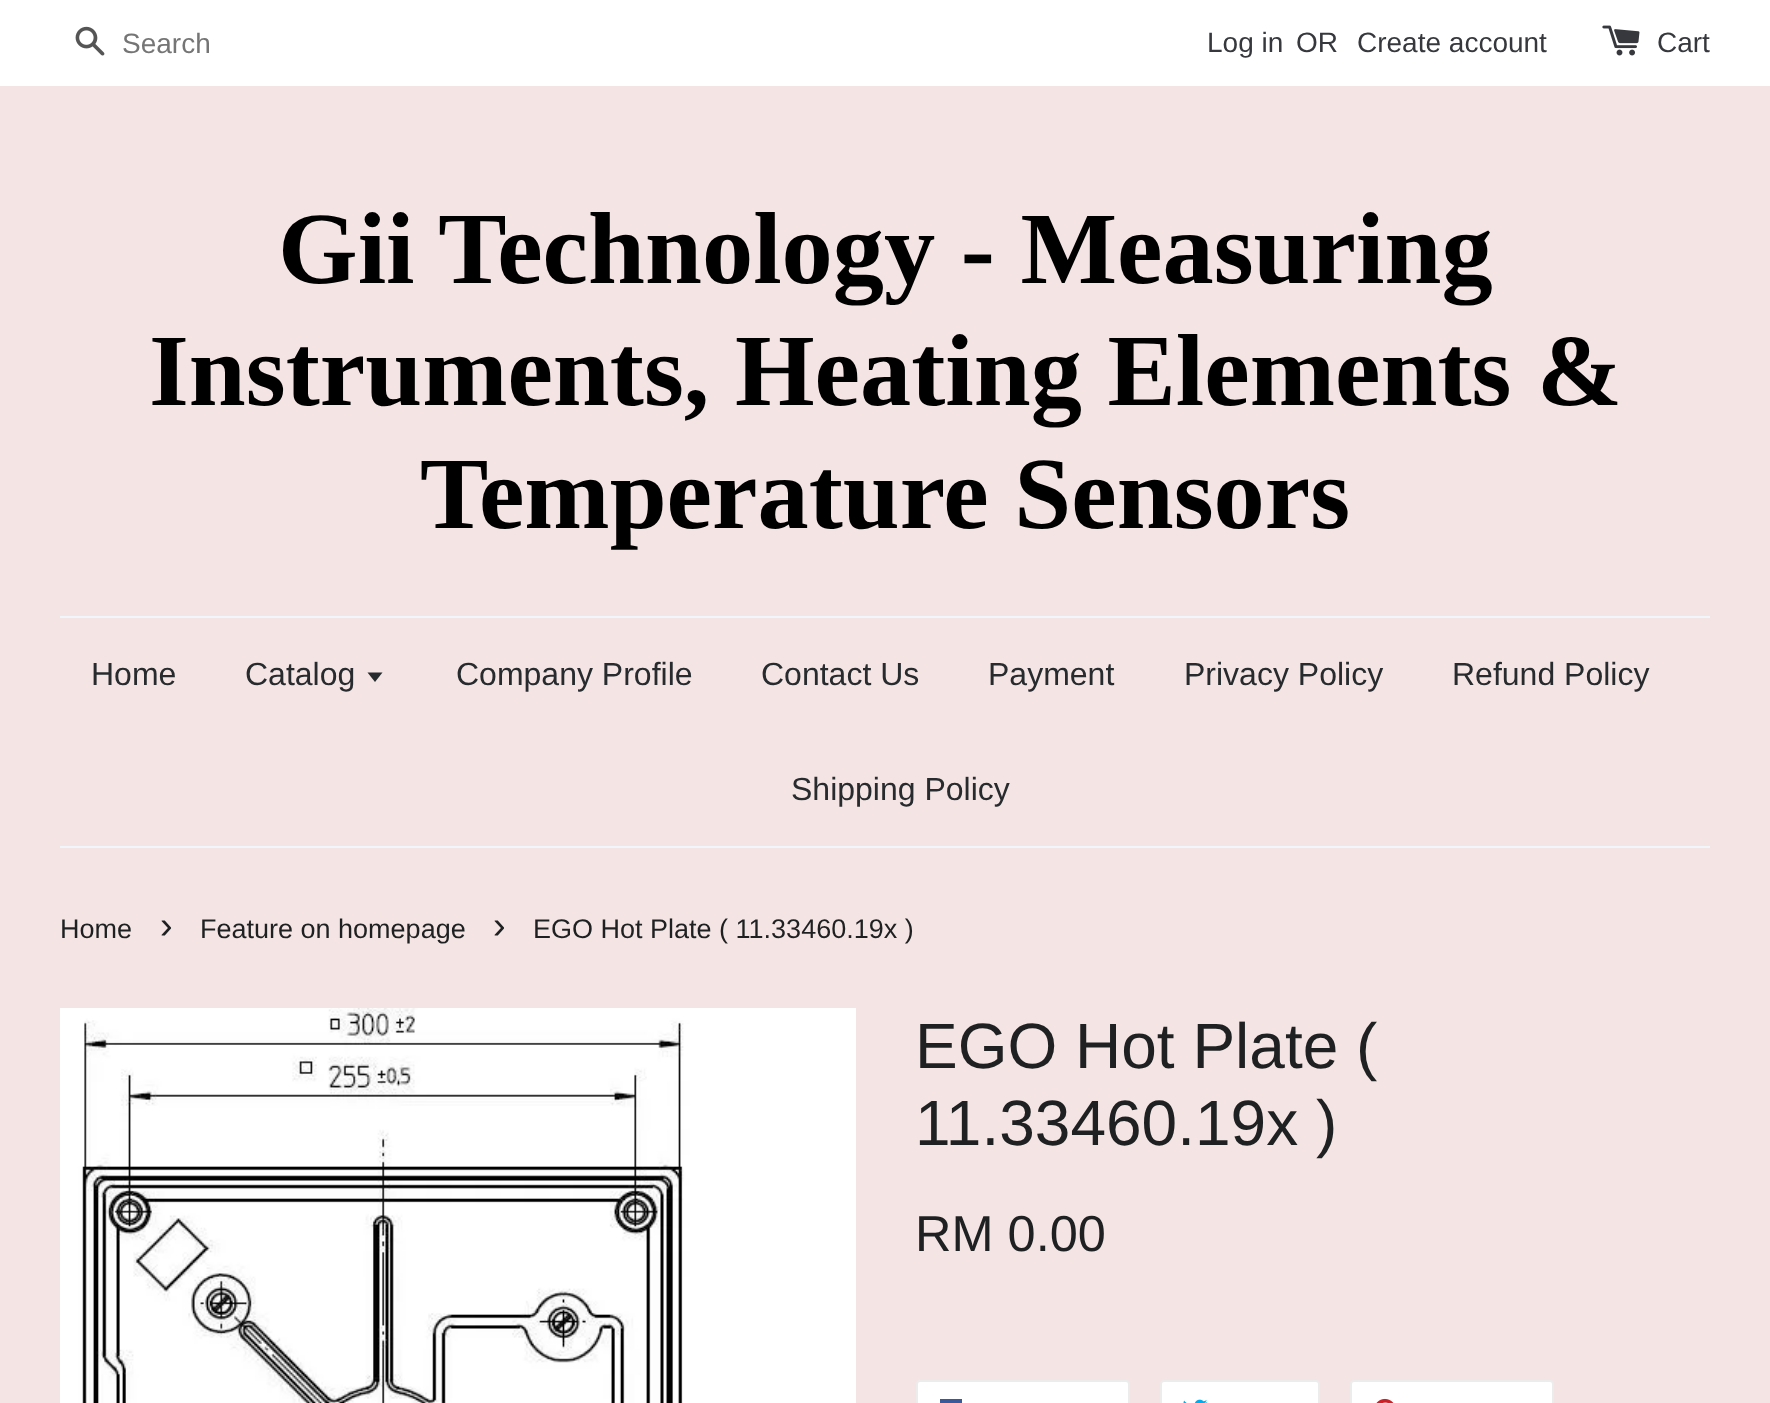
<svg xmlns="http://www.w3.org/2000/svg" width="1770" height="1403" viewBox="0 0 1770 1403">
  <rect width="100%" height="100%" fill="#ffffff"/>
  <image x="75" y="26" width="30" height="30" href="img1.png"/>
  <text x="122" y="53" font-family="Liberation Sans" font-size="28" fill="#757575">Search</text>
  <text x="1207" y="52" font-family="Liberation Sans" font-size="28" fill="#36383d">Log in</text>
  <text x="1296" y="52" font-family="Liberation Sans" font-size="28" fill="#36383d">OR</text>
  <text x="1357" y="52" font-family="Liberation Sans" font-size="28" fill="#36383d">Create account</text>
  <image x="1602" y="25" width="38" height="31" href="img2.png"/>
  <text x="1657" y="52" font-family="Liberation Sans" font-size="28" fill="#36383d">Cart</text>
  <rect x="0" y="86" width="1770" height="1317" fill="#f4e4e4"/>
  <text x="278" y="283" font-family="Liberation Serif" font-size="102.4" font-weight="bold" fill="#000000">Gii Technology - Measuring</text>
  <text x="149" y="405" font-family="Liberation Serif" font-size="102.4" font-weight="bold" fill="#000000">Instruments, Heating Elements &amp;</text>
  <text x="420" y="528" font-family="Liberation Serif" font-size="102.4" font-weight="bold" fill="#000000">Temperature Sensors</text>
  <rect x="60" y="616" width="1650" height="2" fill="#f0f6f9"/>
  <rect x="60" y="846" width="1650" height="2" fill="#f0f6f9"/>
  <text x="91" y="685" font-family="Liberation Sans" font-size="32" fill="#272b2e">Home</text>
  <text x="245" y="685" font-family="Liberation Sans" font-size="32" fill="#272b2e">Catalog</text>
  <path d="M367.5 672.5L375 682L382.5 672.5Z" fill="#272b2e"/>
  <text x="456" y="685" font-family="Liberation Sans" font-size="32" fill="#272b2e">Company Profile</text>
  <text x="761" y="685" font-family="Liberation Sans" font-size="32" fill="#272b2e">Contact Us</text>
  <text x="988" y="685" font-family="Liberation Sans" font-size="32" fill="#272b2e">Payment</text>
  <text x="1184" y="685" font-family="Liberation Sans" font-size="32" fill="#272b2e">Privacy Policy</text>
  <text x="1452" y="685" font-family="Liberation Sans" font-size="32" fill="#272b2e">Refund Policy</text>
  <text x="791" y="800" font-family="Liberation Sans" font-size="32" fill="#272b2e">Shipping Policy</text>
  <text x="60" y="938" font-family="Liberation Sans" font-size="27" fill="#1e2021">Home</text>
  <text x="160" y="938" font-family="Liberation Sans" font-size="38" fill="#1e2021">›</text>
  <text x="200" y="938" font-family="Liberation Sans" font-size="27" fill="#1e2021">Feature on homepage</text>
  <text x="493" y="938" font-family="Liberation Sans" font-size="38" fill="#1e2021">›</text>
  <text x="533" y="938" font-family="Liberation Sans" font-size="27" fill="#1e2021">EGO Hot Plate ( 11.33460.19x )</text>
  <image x="60" y="1008" width="796" height="395" href="img3.png"/>
  <text x="915" y="1068" font-family="Liberation Sans" font-size="64" fill="#1e2021">EGO Hot Plate (</text>
  <text x="915" y="1145" font-family="Liberation Sans" font-size="64" fill="#1e2021">11.33460.19x )</text>
  <text x="915" y="1251" font-family="Liberation Sans" font-size="50.5" fill="#1e2021">RM 0.00</text>
  <rect x="917" y="1381" width="212" height="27" rx="3" fill="#ffffff" stroke="#ececec" stroke-width="2"/>
  <rect x="940" y="1399" width="22" height="4" fill="#3b5998"/>
  <rect x="1161" y="1381" width="158" height="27" rx="3" fill="#ffffff" stroke="#ececec" stroke-width="2"/>
  <image x="1183" y="1399" width="25" height="4" href="img4.png"/>
  <rect x="1351" y="1381" width="202" height="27" rx="3" fill="#ffffff" stroke="#ececec" stroke-width="2"/>
  <image x="1376" y="1398" width="18" height="5" href="img5.png"/>
</svg>
